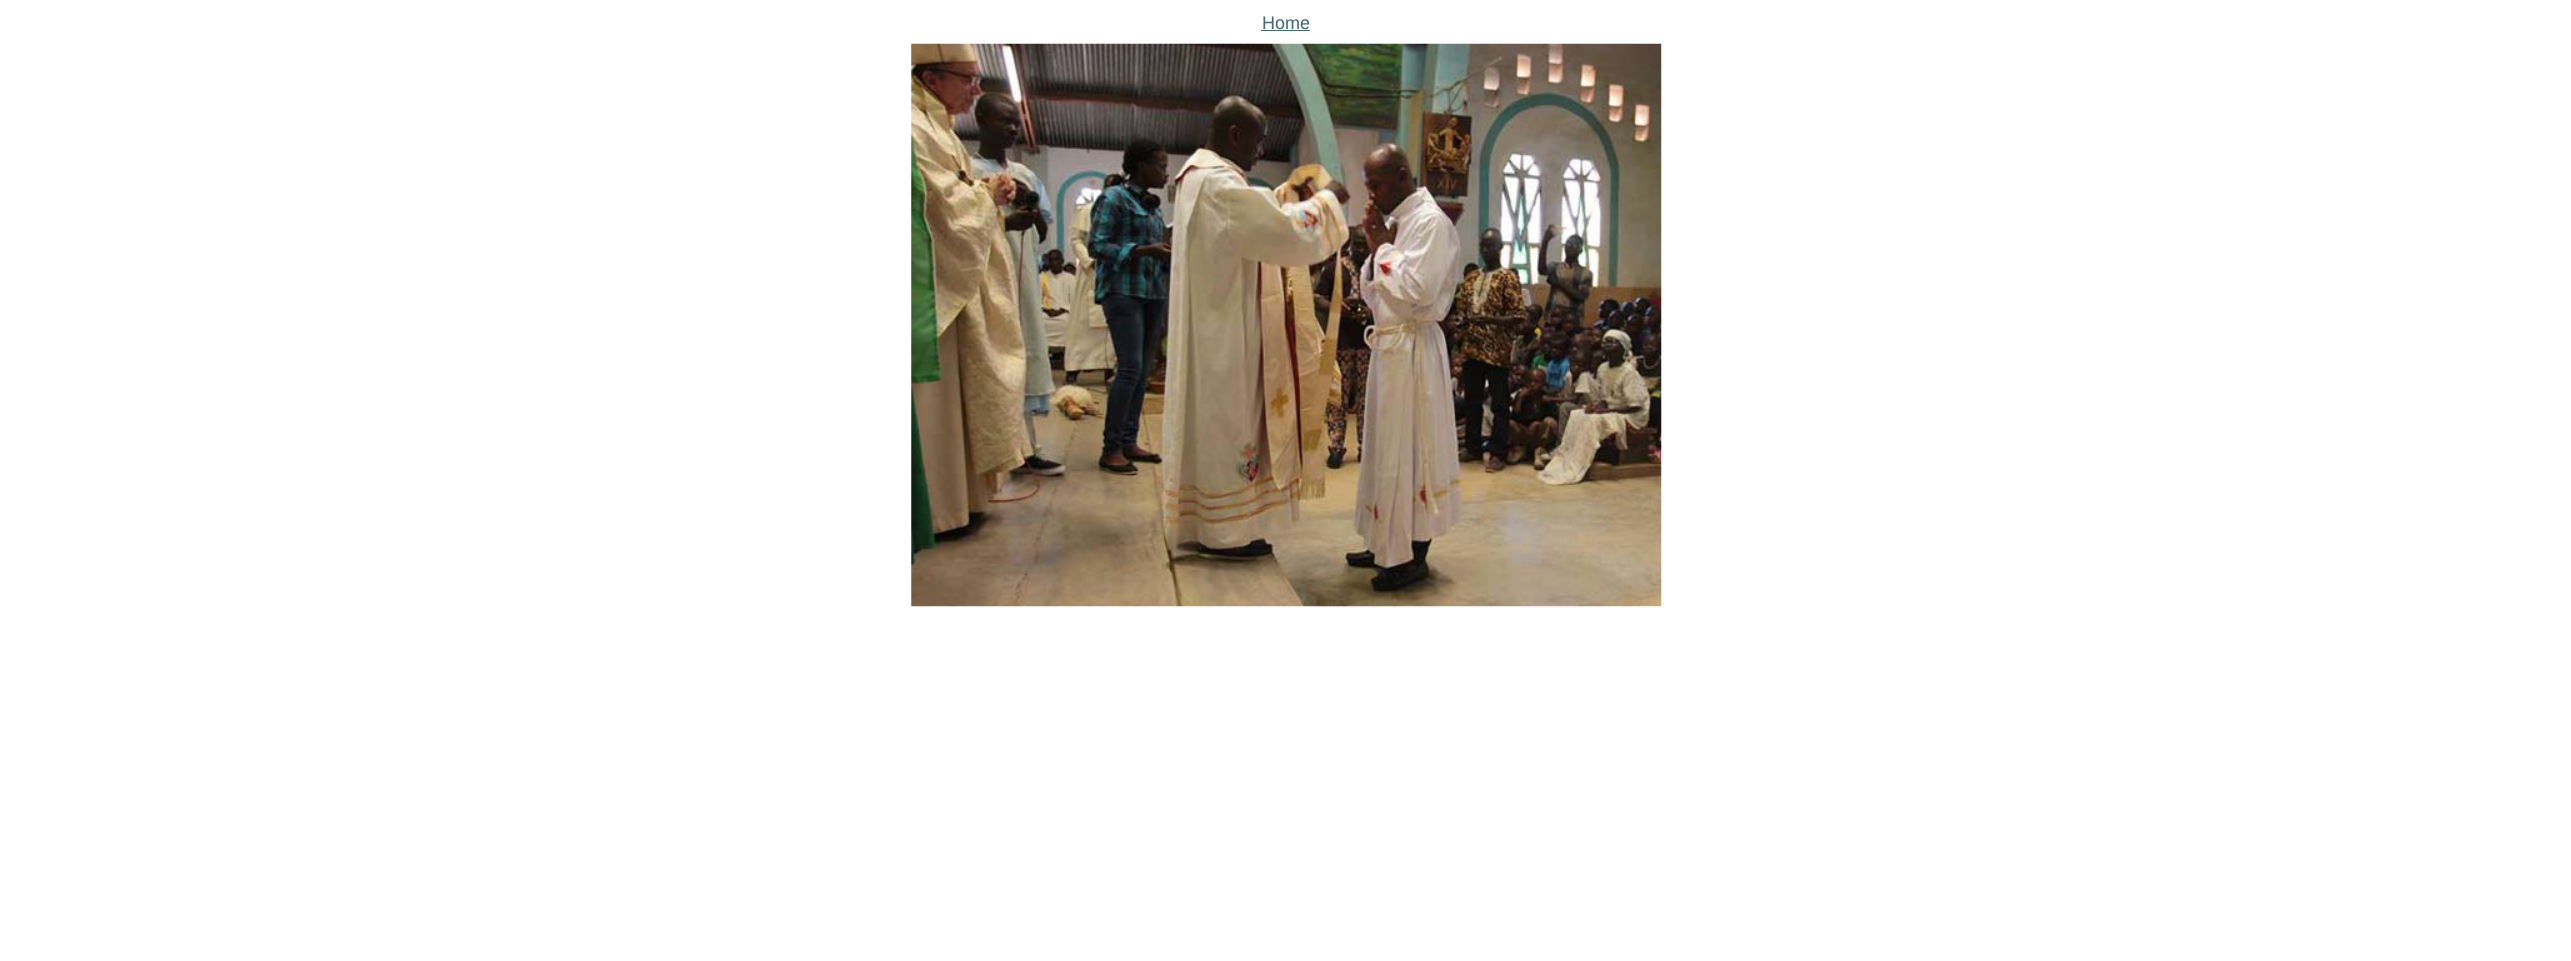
<svg xmlns="http://www.w3.org/2000/svg" width="2571" height="961" viewBox="0 0 2571 961">
  <rect width="100%" height="100%" fill="#ffffff"/>
  <text x="1262" y="29" font-family="Liberation Sans" font-size="18" fill="#436976">Home</text>
  <rect x="1261" y="30" width="49" height="1" fill="#436976"/>
  <image x="911" y="43" width="751" height="564" href="img1.png"/>
</svg>
